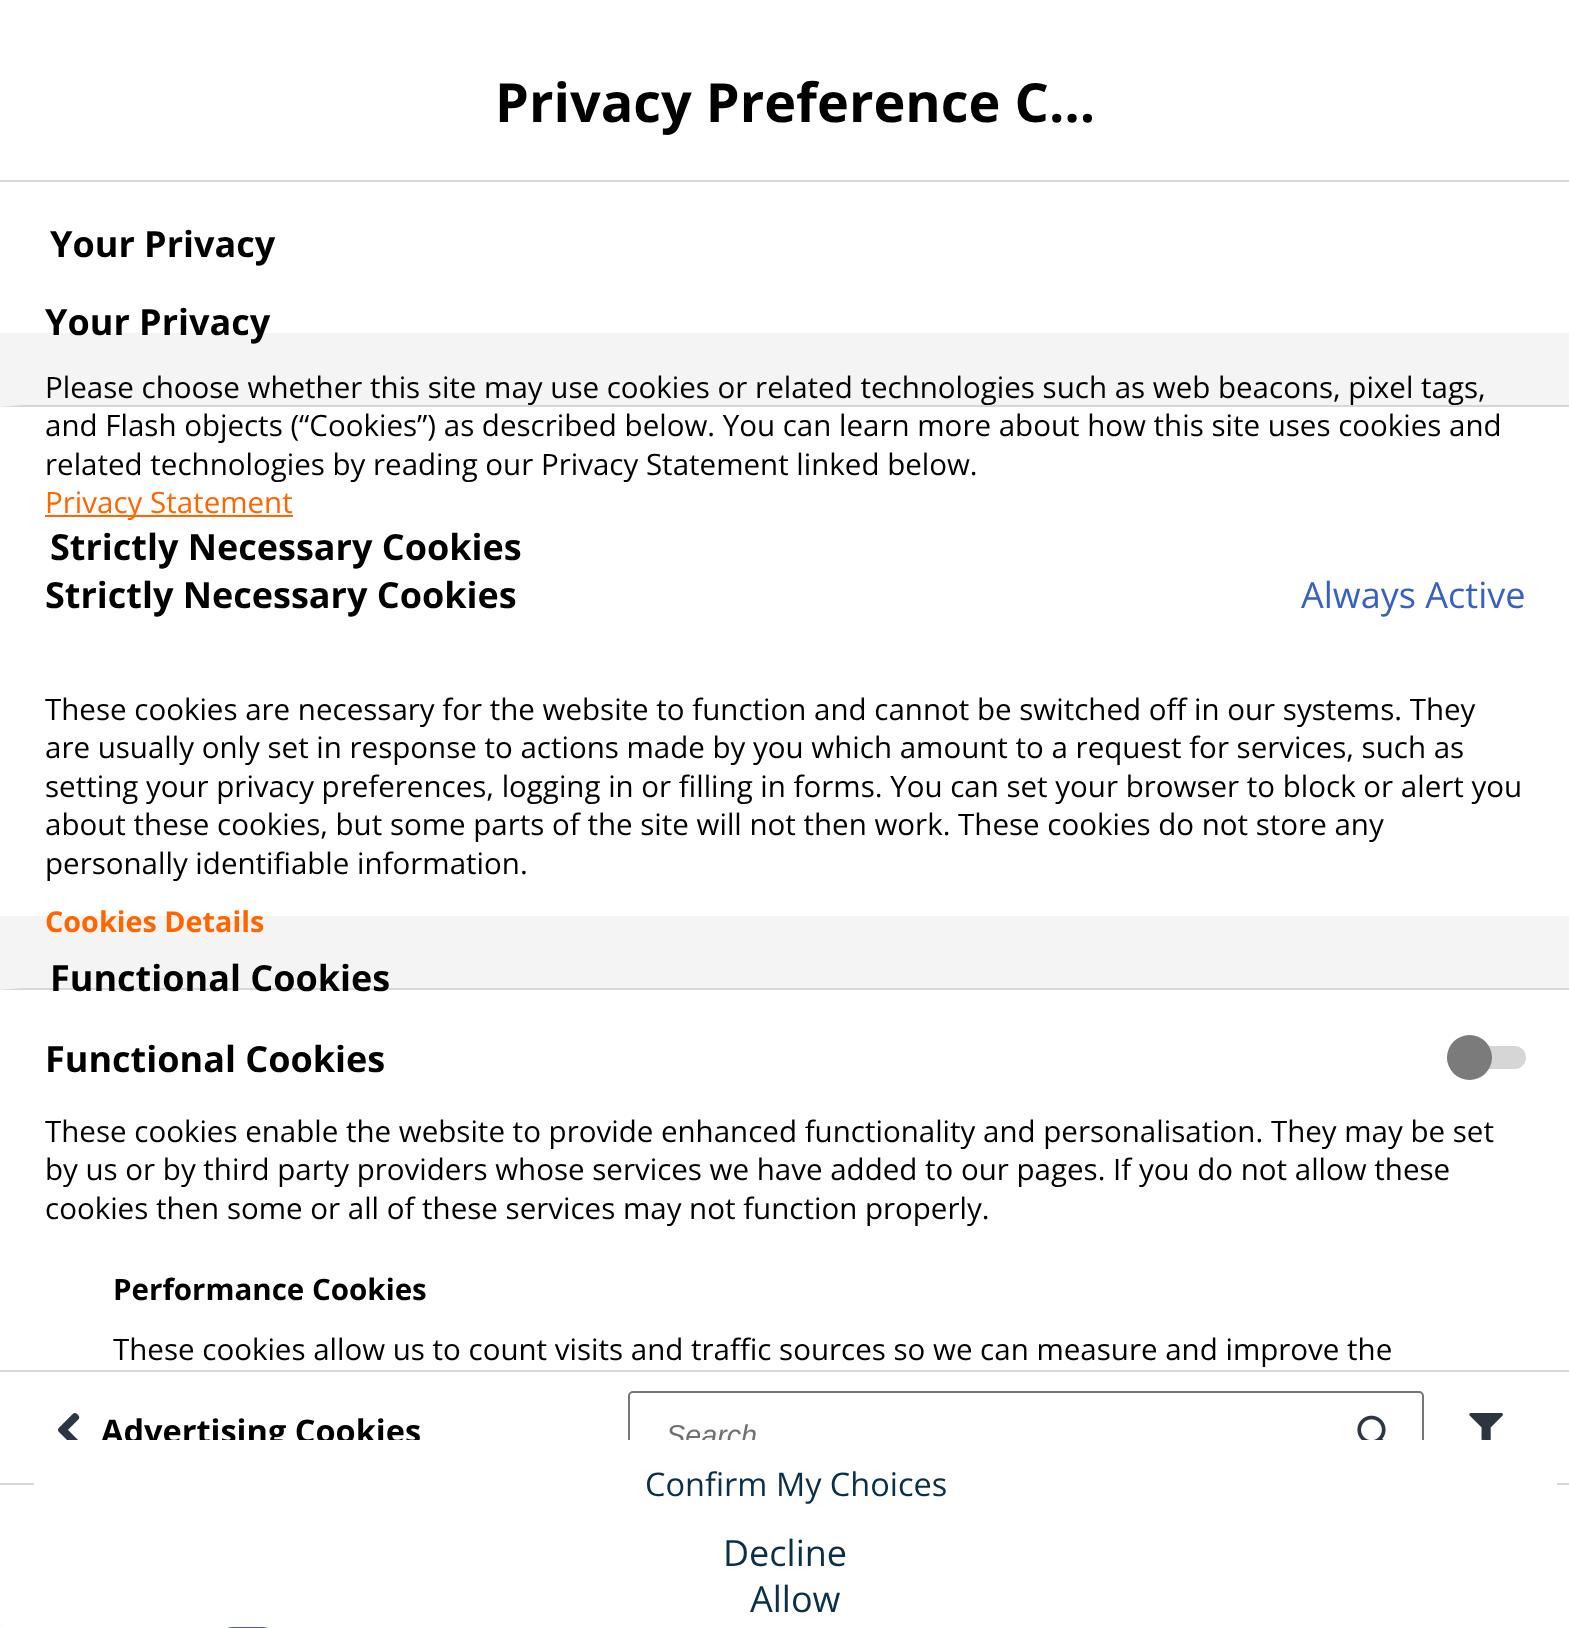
<svg xmlns="http://www.w3.org/2000/svg" width="1569" height="1628" viewBox="0 0 1569 1628">
  <defs>
    <filter id="blur1" x="-50%" y="-200%" width="200%" height="500%"><feGaussianBlur stdDeviation="16"/></filter>
  </defs>
  <rect width="100%" height="100%" fill="#ffffff"/>
  <rect x="0" y="16" width="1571" height="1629" rx="5" fill="#32325d" fill-opacity="0.1" filter="url(#blur1)"/>
  <rect x="0" y="0" width="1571" height="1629" rx="5" fill="#ffffff"/>
  <rect x="0" y="180" width="1569" height="2" fill="#d8d8d8"/>
  <text x="495" y="122" font-family="Open Sans" font-size="54" font-weight="bold" fill="#000000">Privacy Preference C…</text>
  <text x="50" y="257" font-family="Open Sans" font-size="36" font-weight="bold" fill="#000000">Your Privacy</text>
  <rect x="0" y="333" width="1569" height="74" fill="#f4f4f4"/>
  <text x="45" y="335" font-family="Open Sans" font-size="36" font-weight="bold" fill="#000000">Your Privacy</text>
  <path d="M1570 407H0L22 405H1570Z" fill="#d7d7d7"/>
  <text x="45" y="398" font-family="Open Sans" font-size="29.52" fill="#000000">Please choose whether this site may use cookies or related technologies such as web beacons, pixel tags,</text>
  <text x="45" y="436" font-family="Open Sans" font-size="29.52" fill="#000000">and Flash objects (“Cookies”) as described below. You can learn more about how this site uses cookies and</text>
  <text x="45" y="475" font-family="Open Sans" font-size="29.52" fill="#000000">related technologies by reading our Privacy Statement linked below.</text>
  <rect x="45" y="515" width="248" height="2" fill="#ff6600"/>
  <text x="45" y="513" font-family="Open Sans" font-size="29.52" fill="#ff6600">Privacy Statement</text>
  <text x="50" y="560" font-family="Open Sans" font-size="36" font-weight="bold" fill="#000000">Strictly Necessary Cookies</text>
  <text x="45" y="608" font-family="Open Sans" font-size="36" font-weight="bold" fill="#000000">Strictly Necessary Cookies</text>
  <text x="1301" y="608" font-family="Open Sans" font-size="36" fill="#3860be">Always Active</text>
  <text x="45" y="720" font-family="Open Sans" font-size="29.52" fill="#000000">These cookies are necessary for the website to function and cannot be switched off in our systems. They</text>
  <text x="45" y="758" font-family="Open Sans" font-size="29.52" fill="#000000">are usually only set in response to actions made by you which amount to a request for services, such as</text>
  <text x="45" y="797" font-family="Open Sans" font-size="29.52" fill="#000000">setting your privacy preferences, logging in or filling in forms. You can set your browser to block or alert you</text>
  <text x="45" y="835" font-family="Open Sans" font-size="29.52" fill="#000000">about these cookies, but some parts of the site will not then work. These cookies do not store any</text>
  <text x="45" y="874" font-family="Open Sans" font-size="29.52" fill="#000000">personally identifiable information.</text>
  <rect x="0" y="916" width="1569" height="74" fill="#f4f4f4"/>
  <text x="45" y="932" font-family="Open Sans" font-size="28.75" font-weight="bold" fill="#ff6600">Cookies Details</text>
  <path d="M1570 990H0L22 988H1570Z" fill="#d7d7d7"/>
  <text x="50" y="991" font-family="Open Sans" font-size="36" font-weight="bold" fill="#000000">Functional Cookies</text>
  <text x="45" y="1072" font-family="Open Sans" font-size="36" font-weight="bold" fill="#000000">Functional Cookies</text>
  <rect x="1447" y="1046" width="79" height="23" rx="11.5" fill="#d6d6d6"/>
  <circle cx="1469.5" cy="1057.5" r="22.5" fill="#7b7b7b"/>
  <text x="45" y="1142" font-family="Open Sans" font-size="29.52" fill="#000000">These cookies enable the website to provide enhanced functionality and personalisation. They may be set</text>
  <text x="45" y="1180" font-family="Open Sans" font-size="29.52" fill="#000000">by us or by third party providers whose services we have added to our pages. If you do not allow these</text>
  <text x="45" y="1219" font-family="Open Sans" font-size="29.52" fill="#000000">cookies then some or all of these services may not function properly.</text>
  <text x="113" y="1300" font-family="Open Sans" font-size="29.52" font-weight="bold" fill="#000000">Performance Cookies</text>
  <text x="113" y="1360" font-family="Open Sans" font-size="29.52" fill="#000000">These cookies allow us to count visits and traffic sources so we can measure and improve the</text>
  <rect x="0" y="1483" width="1569" height="2" fill="#d8d8d8"/>
  <image x="58" y="1413" width="22" height="27" href="img1.png"/>
  <text x="101" y="1443" font-family="Open Sans" font-size="32.5" font-weight="bold" fill="#000000">Advertising Cookies</text>
  <rect x="629" y="1392" width="794" height="83" rx="4" fill="none" stroke="#767676" stroke-width="2"/>
  <text x="666" y="1445" font-family="Liberation Sans" font-size="28.75" font-style="italic" fill="#707070">Search</text>
  <image x="1357" y="1415" width="29" height="25" href="img2.png"/>
  <image x="1469" y="1413" width="34" height="27" href="img3.png"/>
  <rect x="226" y="1628" width="43" height="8" rx="6" fill="none" stroke="#3860be" stroke-width="2"/>
  <rect x="0" y="1370" width="1569" height="2" fill="#d8d8d8"/>
  <rect x="34" y="1440" width="1523" height="90" rx="5" fill="#ffffff"/>
  <text x="645" y="1496" font-family="Open Sans" font-size="32.5" fill="#0a2f46">Confirm My Choices</text>
  <text x="723" y="1566" font-family="Open Sans" font-size="36" fill="#0a2f46">Decline</text>
  <text x="750" y="1612" font-family="Open Sans" font-size="36" fill="#0a2f46">Allow</text>
</svg>
